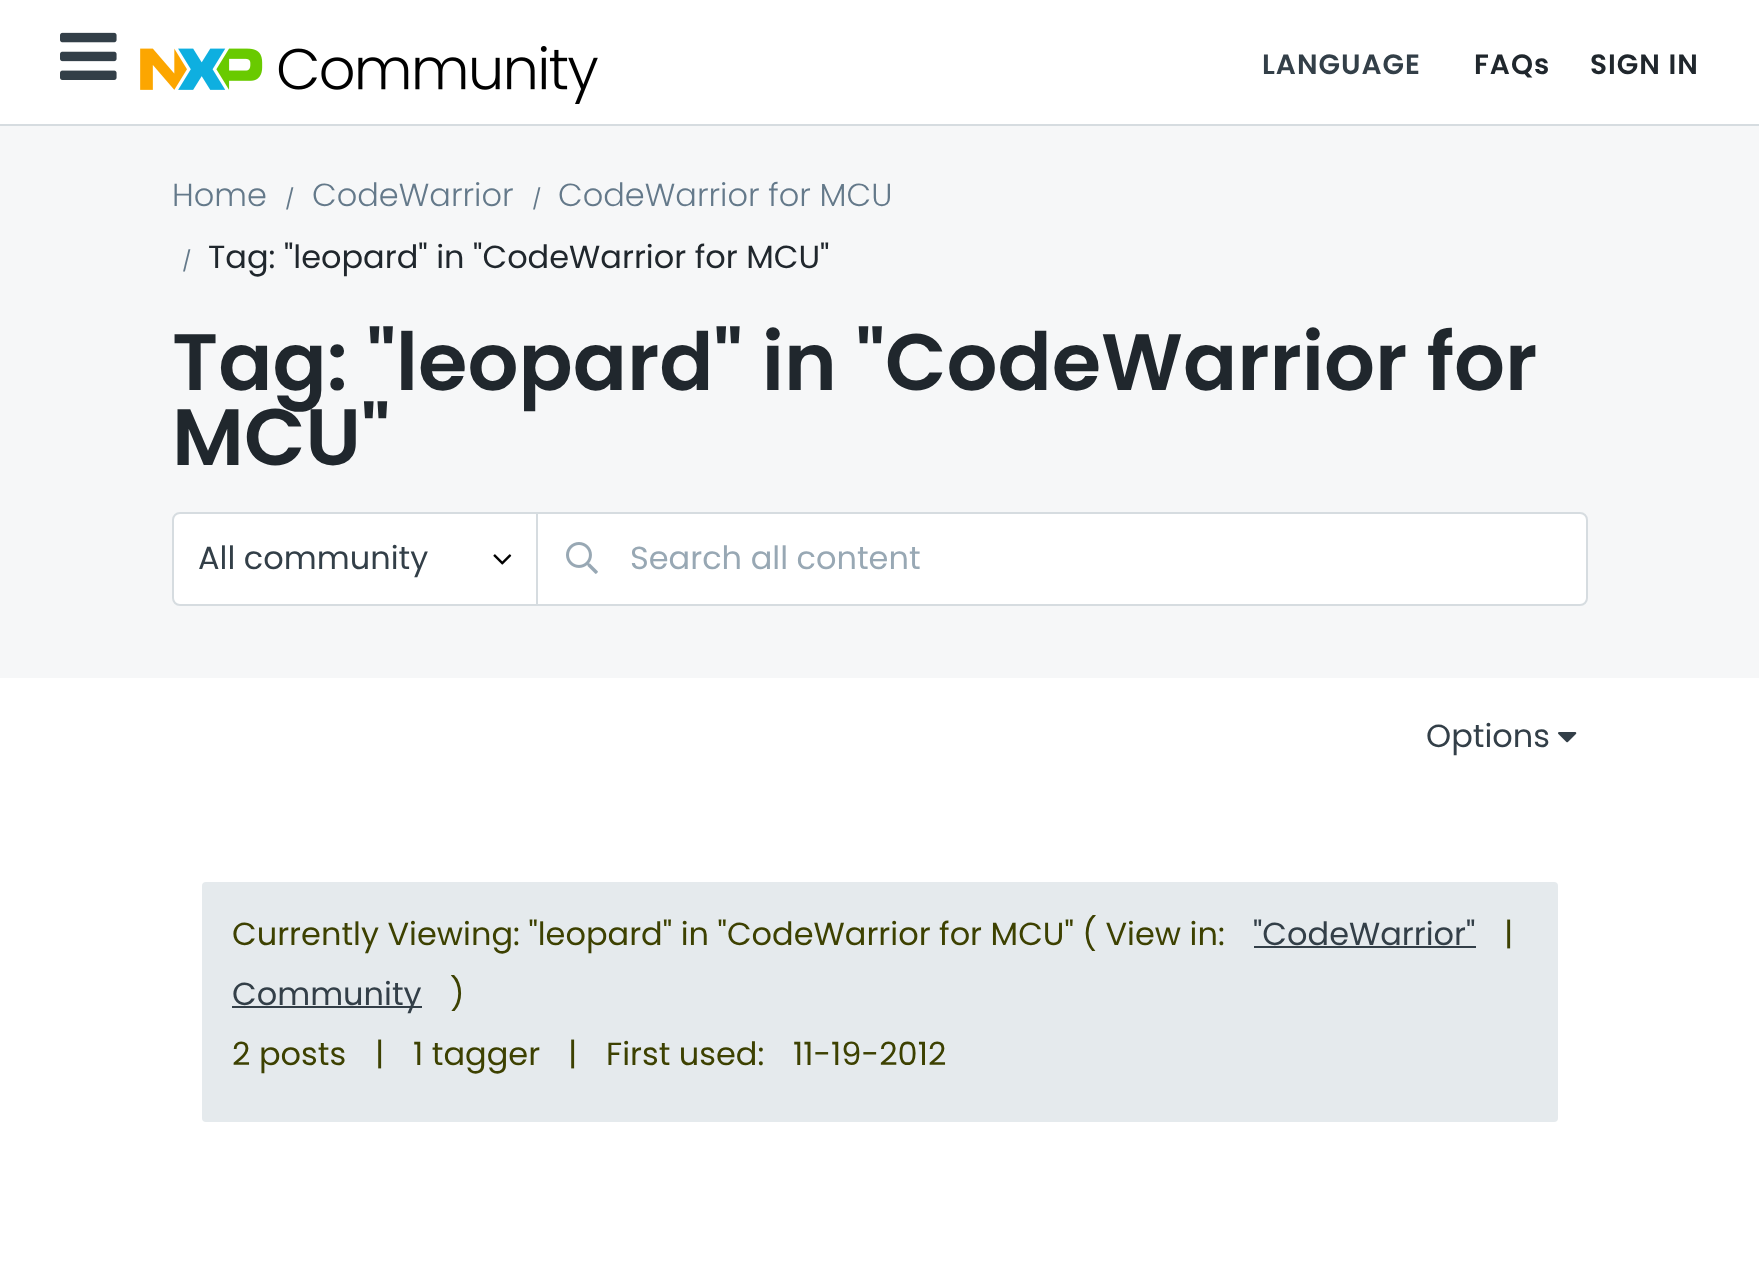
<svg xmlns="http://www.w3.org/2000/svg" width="1759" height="1262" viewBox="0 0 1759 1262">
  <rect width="100%" height="100%" fill="#ffffff"/>
  <rect x="0" y="124" width="1759" height="2" fill="#d6dce0"/>
  <image x="60" y="32" width="57" height="48" href="img1.png"/>
  <image x="140" y="46" width="458" height="58" href="img2.png"/>
  <text x="1262" y="74" font-family="Poppins" font-size="28" font-weight="600" letter-spacing="1" fill="#333f48">LANGUAGE</text>
  <text x="1474" y="74" font-family="Poppins" font-size="28" font-weight="600" letter-spacing="1" fill="#20272d">FAQs</text>
  <text x="1590" y="74" font-family="Poppins" font-size="28" font-weight="600" letter-spacing="1" fill="#20272d">SIGN IN</text>
  <rect x="0" y="126" width="1759" height="552" fill="#f6f7f8"/>
  <text x="172" y="206" font-family="Poppins" font-size="32" font-weight="300" fill="#64798a">Home</text>
  <text x="285" y="206" font-family="Poppins" font-size="20" fill="#64798a">/</text>
  <text x="312" y="206" font-family="Poppins" font-size="32" font-weight="300" fill="#64798a">CodeWarrior</text>
  <text x="532" y="206" font-family="Poppins" font-size="20" fill="#64798a">/</text>
  <text x="558" y="206" font-family="Poppins" font-size="32" font-weight="300" fill="#64798a">CodeWarrior for MCU</text>
  <text x="182" y="268" font-family="Poppins" font-size="20" fill="#64798a">/</text>
  <text x="208" y="268" font-family="Poppins" font-size="32" fill="#20272d">Tag: "leopard" in "CodeWarrior for MCU"</text>
  <text x="172" y="390" font-family="Poppins" font-size="80" font-weight="600" fill="#20272d">Tag: "leopard" in "CodeWarrior for</text>
  <text x="172" y="465" font-family="Poppins" font-size="80" font-weight="600" fill="#20272d">MCU"</text>
  <path d="M537 513H1580C1584 513 1587 516 1587 520V598C1587 602 1584 605 1580 605H537Z" fill="#ffffff" stroke="#d6dce0" stroke-width="2"/>
  <path d="M180 513H537V605H180C176 605 173 602 173 598V520C173 516 176 513 180 513Z" fill="#ffffff" stroke="#d6dce0" stroke-width="2"/>
  <text x="198" y="569" font-family="Poppins" font-size="32" fill="#333f48">All community</text>
  <image x="493" y="554" width="19" height="11" href="img3.png"/>
  <image x="566" y="542" width="32" height="32" href="img4.png"/>
  <text x="630" y="569" font-family="Poppins" font-size="32" fill="#98a8b4">Search all content</text>
  <text x="1426" y="747" font-family="Poppins" font-size="32" fill="#333f48">Options</text>
  <image x="1558" y="732" width="19" height="11" href="img5.png"/>
  <rect x="202" y="882" width="1356" height="240" rx="4" fill="#e5eaed"/>
  <text x="232" y="945" font-family="Poppins" font-size="32" fill="#3d4101">Currently Viewing: "leopard" in "CodeWarrior for MCU" ( View in:</text>
  <text x="1253" y="945" font-family="Poppins" font-size="32" fill="#333f48">"CodeWarrior"</text>
  <rect x="1254" y="946" width="222" height="2" fill="#333f48"/>
  <text x="1504" y="945" font-family="Poppins" font-size="32" fill="#3d4101">|</text>
  <rect x="232" y="1006" width="190" height="2" fill="#333f48"/>
  <text x="232" y="1005" font-family="Poppins" font-size="32" fill="#333f48">Community</text>
  <text x="450" y="1005" font-family="Poppins" font-size="32" fill="#3d4101">)</text>
  <text x="232" y="1065" font-family="Poppins" font-size="32" fill="#3d4101">2 posts</text>
  <text x="375" y="1065" font-family="Poppins" font-size="32" fill="#3d4101">|</text>
  <text x="413" y="1065" font-family="Poppins" font-size="32" fill="#3d4101">1 tagger</text>
  <text x="568" y="1065" font-family="Poppins" font-size="32" fill="#3d4101">|</text>
  <text x="606" y="1065" font-family="Poppins" font-size="32" fill="#3d4101">First used:</text>
  <text x="793" y="1065" font-family="Poppins" font-size="32" fill="#3d4101">11-19-2012</text>
</svg>
